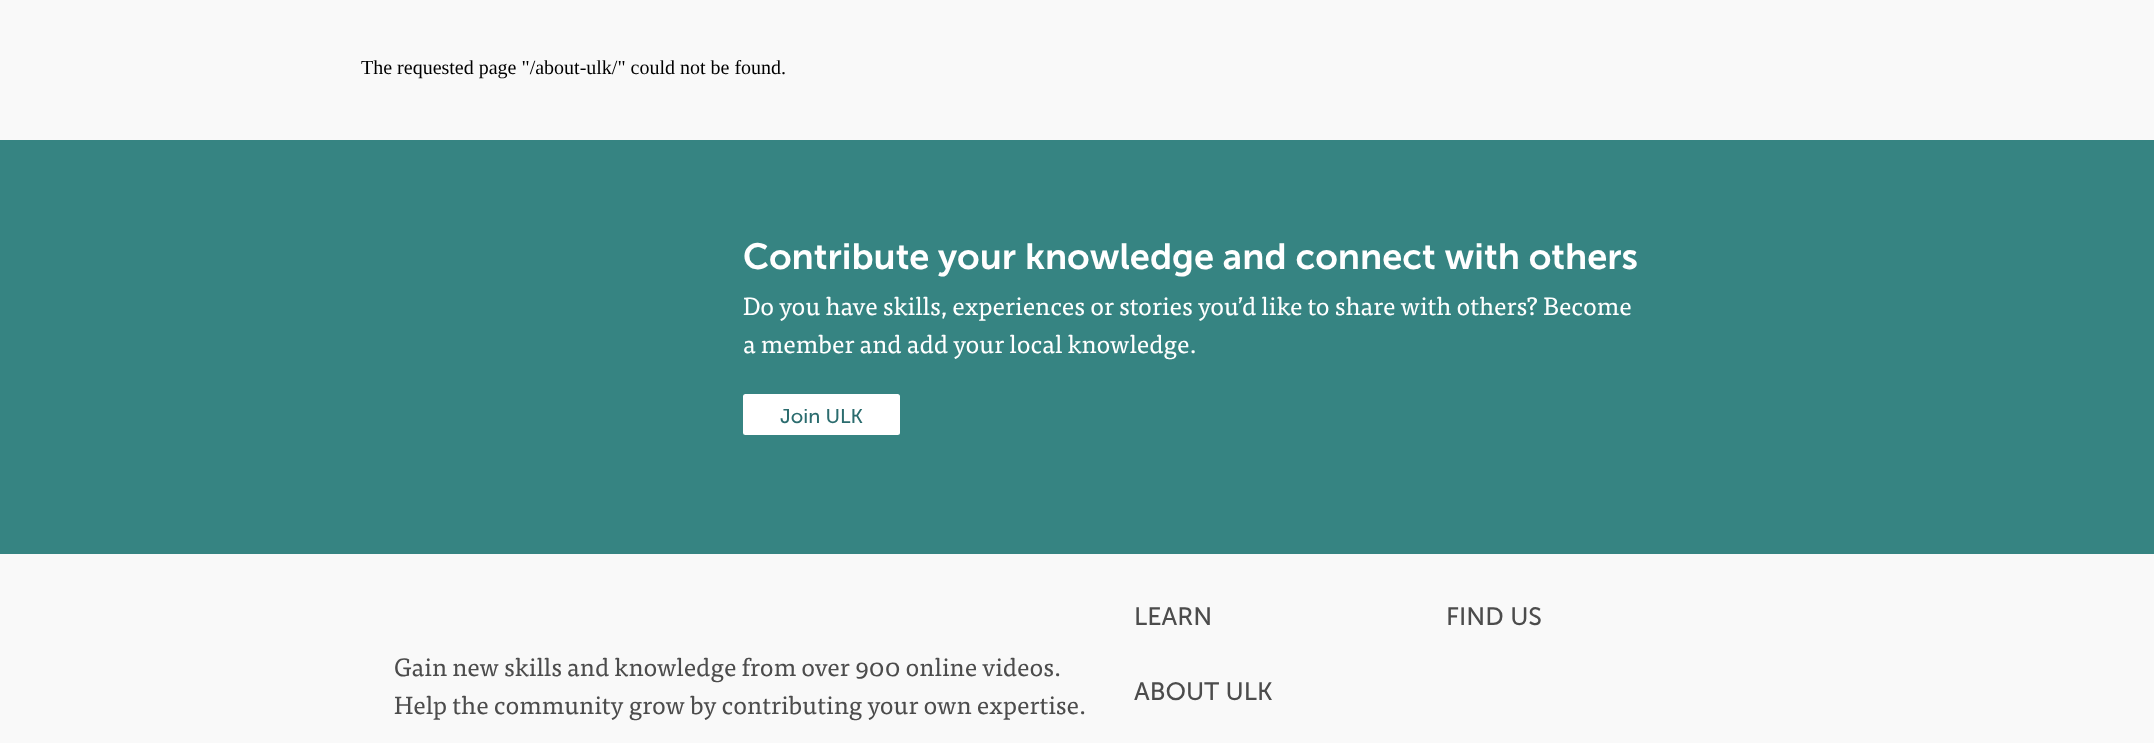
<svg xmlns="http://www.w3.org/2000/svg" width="2154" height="743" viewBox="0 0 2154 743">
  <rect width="100%" height="100%" fill="#f9f9f9"/>
  <text x="361" y="74" font-family="Liberation Serif" font-size="20" fill="#000000">The requested page "/about-ulk/" could not be found.</text>
  <rect x="0" y="140" width="2154" height="414" fill="#368482"/>
  <text x="743" y="269" font-family="'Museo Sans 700'" font-size="36.25" font-weight="600" fill="#ffffff">Contribute your knowledge and connect with others</text>
  <text x="743" y="315" font-family="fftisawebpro" font-size="25" fill="#ffffff">Do you have skills, experiences or stories you’d like to share with others? Become</text>
  <text x="743" y="353" font-family="fftisawebpro" font-size="25" fill="#ffffff">a member and add your local knowledge.</text>
  <rect x="743" y="394" width="157" height="41" rx="2.5" fill="#ffffff"/>
  <text x="780" y="423" font-family="'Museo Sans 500'" font-size="20" fill="#2b6c6e">Join ULK</text>
  <text x="1134" y="625" font-family="'Museo Sans 500'" font-size="25" fill="#4c4c4c">LEARN</text>
  <text x="1134" y="700" font-family="'Museo Sans 500'" font-size="25" fill="#4c4c4c">ABOUT ULK</text>
  <text x="1446" y="625" font-family="'Museo Sans 500'" font-size="25" fill="#4c4c4c">FIND US</text>
  <text x="394" y="676" font-family="fftisawebpro" font-size="25" fill="#4c4c4c">Gain new skills and knowledge from over 900 online videos.</text>
  <text x="394" y="714" font-family="fftisawebpro" font-size="25" fill="#4c4c4c">Help the community grow by contributing your own expertise.</text>
</svg>
